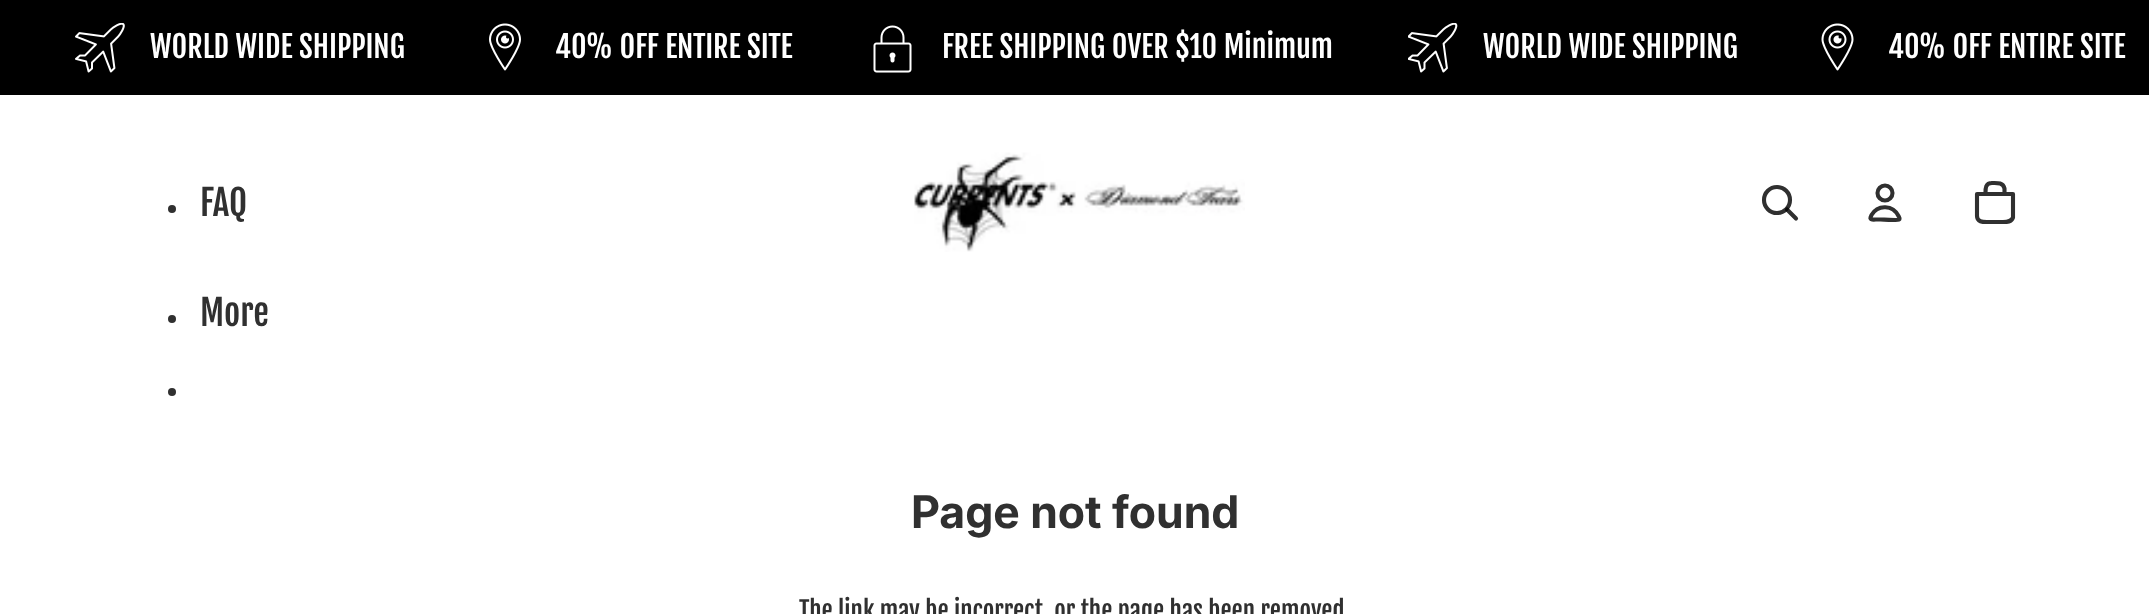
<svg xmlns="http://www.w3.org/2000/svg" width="2149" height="614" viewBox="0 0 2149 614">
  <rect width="100%" height="100%" fill="#ffffff"/>
  <rect x="0" y="0" width="2149" height="95" fill="#000000"/>
  <image x="75" y="23" width="50" height="50" href="img1.png"/>
  <text x="150" y="58" font-family="Fjalla One" font-size="30" fill="#ffffff">WORLD WIDE SHIPPING</text>
  <image x="489" y="23" width="32" height="48" href="img2.png"/>
  <text x="555" y="58" font-family="Fjalla One" font-size="30" fill="#ffffff">40% OFF ENTIRE SITE</text>
  <image x="873" y="25" width="39" height="48" href="img3.png"/>
  <text x="942" y="58" font-family="Fjalla One" font-size="30" fill="#ffffff">FREE SHIPPING OVER $10 Minimum</text>
  <image x="1408" y="23" width="50" height="50" href="img4.png"/>
  <text x="1483" y="58" font-family="Fjalla One" font-size="30" fill="#ffffff">WORLD WIDE SHIPPING</text>
  <image x="1821" y="23" width="33" height="48" href="img5.png"/>
  <text x="1888" y="58" font-family="Fjalla One" font-size="30" fill="#ffffff">40% OFF ENTIRE SITE</text>
  <circle cx="172" cy="209" r="4" fill="#303030"/>
  <text x="200" y="216" font-family="Fjalla One" font-size="35" fill="#303030">FAQ</text>
  <circle cx="172" cy="319" r="4" fill="#303030"/>
  <text x="200" y="326" font-family="Fjalla One" font-size="35" fill="#303030">More</text>
  <circle cx="172" cy="392" r="4" fill="#303030"/>
  <image x="914" y="152" width="331" height="100" href="img6.png"/>
  <circle cx="1777" cy="200" r="13" fill="none" stroke="#303030" stroke-width="4.1"/>
  <path d="M1787 209.5L1796 218.5" fill="none" stroke="#000000" stroke-opacity="0.81" stroke-width="4.1" stroke-linecap="round" stroke-linejoin="round"/>
  <circle cx="1885" cy="193" r="7.5" fill="none" stroke="#303030" stroke-width="4.1"/>
  <path d="M1871.5 215L1870.5 217.5C1869.5 220.5 1875.5 219.5 1876.5 219.5H1880.5C1883 219.5 1898 220.5 1899 219.5L1899.5 219C1900 218 1899 217 1898.5 216C1893 205 1878 204 1871.5 215" fill="none" stroke="#303030" stroke-width="4.1" stroke-linecap="round" stroke-linejoin="round"/>
  <path d="M1977 194H2013V217.5C2011.5 222 2007 222 2003 222H1987C1982.5 222 1977 222 1977 216ZM1991.5 183C1996.5 183 2003 182 2004.5 188.5V194H1985.5C1985.5 189 1985 183 1992 183" fill="none" stroke="#303030" stroke-width="4.1" stroke-linecap="round" stroke-linejoin="round"/>
  <text x="911" y="528" font-family="Inter" font-size="45" font-weight="bold" fill="#303030">Page not found</text>
  <text x="799" y="620" font-family="Fjalla One" font-size="25" fill="#303030">The link may be incorrect, or the page has been removed</text>
</svg>
